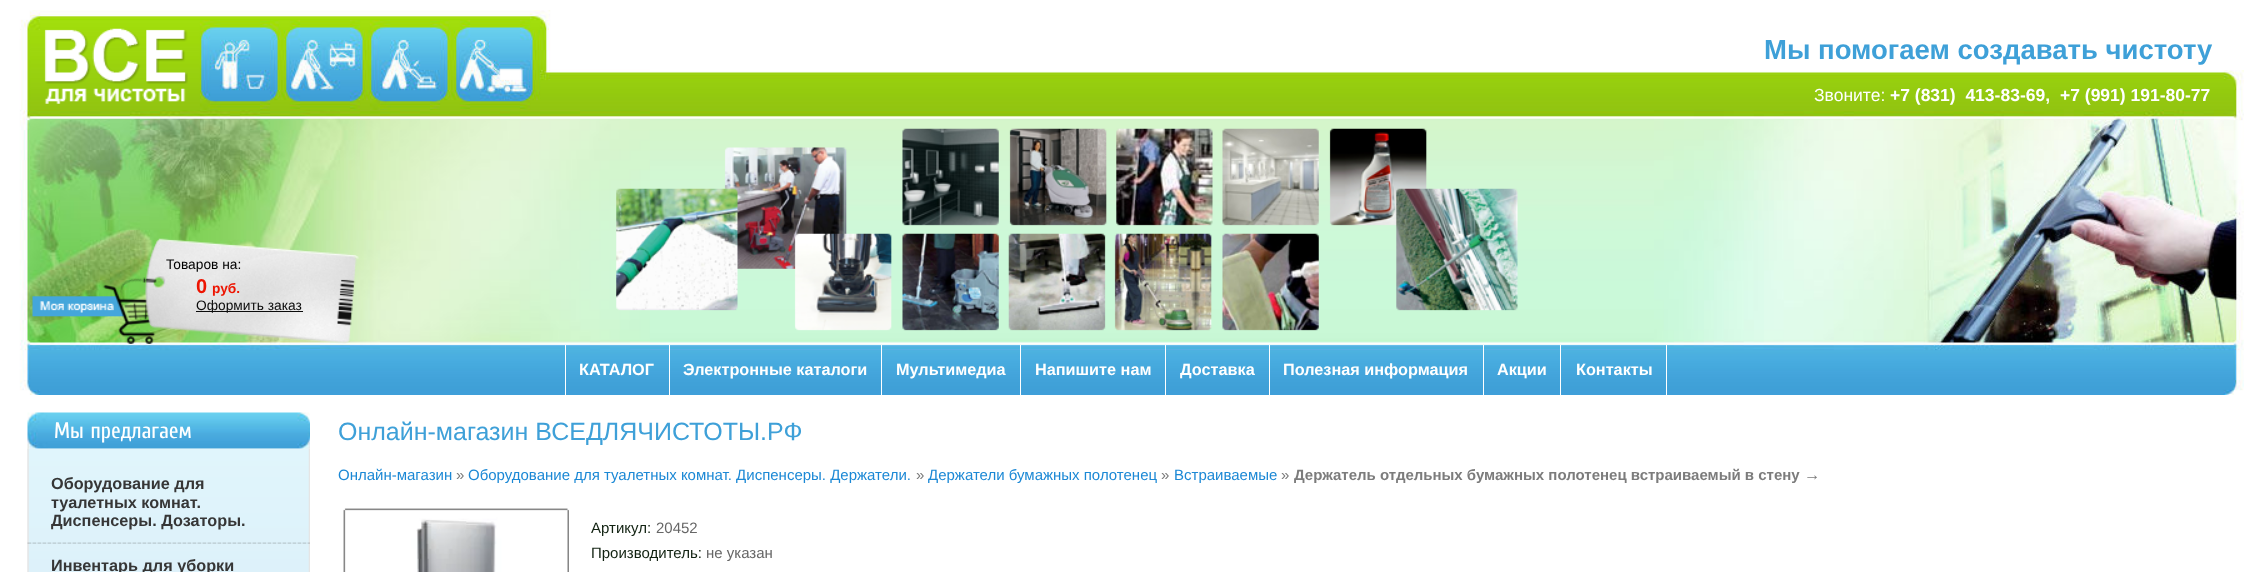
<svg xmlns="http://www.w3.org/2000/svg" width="2263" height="572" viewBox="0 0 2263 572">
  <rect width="100%" height="100%" fill="#ffffff"/>
  <image x="650" y="71" width="1004" height="324" href="img1.png"/>
  <image x="0" y="10" width="650" height="385" href="img2.png"/>
  <image x="1654" y="70" width="609" height="325" href="img3.png"/>
  <image x="44" y="28" width="144" height="76" href="img4.png"/>
  <text x="1764" y="59" font-family="Liberation Sans" font-size="27.5" font-weight="bold" fill="#3ea0d8">Мы помогаем создавать чистоту</text>
  <text x="1814" y="101" font-family="Liberation Sans" font-size="17.5" fill="#ffffff">Звоните:</text>
  <text x="1890" y="101" font-family="Liberation Sans" font-size="17.5" font-weight="bold" fill="#ffffff" xml:space="preserve">+7 (831)  413-83-69,</text>
  <text x="2060" y="101" font-family="Liberation Sans" font-size="17.5" font-weight="bold" fill="#ffffff">+7 (991) 191-80-77</text>
  <image x="32" y="238" width="327" height="106" href="img5.png"/>
  <text x="166" y="269" font-family="Liberation Sans" font-size="13.75" fill="#000000">Товаров на:</text>
  <text x="196" y="293" font-family="Liberation Sans" font-size="20" font-weight="bold" fill="#ed1401">0</text>
  <text x="212" y="293" font-family="Liberation Sans" font-size="13.75" font-weight="bold" fill="#ed1401">руб.</text>
  <rect x="196" y="311" width="107" height="1" fill="#0b0b0b"/>
  <text x="196" y="310" font-family="Liberation Sans" font-size="13.75" fill="#0b0b0b">Оформить заказ</text>
  <image x="616" y="128" width="902" height="203" href="img6.png"/>
  <rect x="565" y="345" width="1" height="50" fill="#ffffff"/>
  <text x="579" y="375" font-family="Liberation Sans" font-size="16.25" font-weight="bold" fill="#ffffff">КАТАЛОГ</text>
  <rect x="669" y="345" width="1" height="50" fill="#ffffff"/>
  <text x="683" y="375" font-family="Liberation Sans" font-size="16.25" font-weight="bold" fill="#ffffff">Электронные каталоги</text>
  <rect x="881" y="345" width="1" height="50" fill="#ffffff"/>
  <text x="896" y="375" font-family="Liberation Sans" font-size="16.25" font-weight="bold" fill="#ffffff">Мультимедиа</text>
  <rect x="1020" y="345" width="1" height="50" fill="#ffffff"/>
  <text x="1035" y="375" font-family="Liberation Sans" font-size="16.25" font-weight="bold" fill="#ffffff">Напишите нам</text>
  <rect x="1165" y="345" width="1" height="50" fill="#ffffff"/>
  <text x="1180" y="375" font-family="Liberation Sans" font-size="16.25" font-weight="bold" fill="#ffffff">Доставка</text>
  <rect x="1269" y="345" width="1" height="50" fill="#ffffff"/>
  <text x="1283" y="375" font-family="Liberation Sans" font-size="16.25" font-weight="bold" fill="#ffffff">Полезная информация</text>
  <rect x="1483" y="345" width="1" height="50" fill="#ffffff"/>
  <text x="1497" y="375" font-family="Liberation Sans" font-size="16.25" font-weight="bold" fill="#ffffff">Акции</text>
  <rect x="1560" y="345" width="1" height="50" fill="#ffffff"/>
  <text x="1576" y="375" font-family="Liberation Sans" font-size="16.25" font-weight="bold" fill="#ffffff">Контакты</text>
  <rect x="1666" y="345" width="1" height="50" fill="#ffffff"/>
  <image x="27" y="412" width="283" height="37" href="img7.png"/>
  <text x="54" y="438" font-family="Cuprum" font-size="22.5" fill="#ffffff">Мы предлагаем</text>
  <image x="27" y="448" width="283" height="124" href="img8.png"/>
  <image x="27" y="448" width="283" height="124" href="img9.png"/>
  <image x="27" y="542" width="283" height="2" href="img10.png"/>
  <text x="51" y="489" font-family="Liberation Sans" font-size="16.25" font-weight="bold" fill="#363636">Оборудование для</text>
  <text x="51" y="508" font-family="Liberation Sans" font-size="16.25" font-weight="bold" fill="#363636">туалетных комнат.</text>
  <text x="51" y="526" font-family="Liberation Sans" font-size="16.25" font-weight="bold" fill="#363636">Диспенсеры. Дозаторы.</text>
  <text x="51" y="571" font-family="Liberation Sans" font-size="16.25" font-weight="bold" fill="#363636">Инвентарь для уборки</text>
  <text x="338" y="440" font-family="Liberation Sans" font-size="25" fill="#3ea0d8">Онлайн-магазин ВСЕДЛЯЧИСТОТЫ.РФ</text>
  <text x="338" y="480" font-family="Liberation Sans" font-size="15" fill="#1b88d5">Онлайн-магазин</text>
  <text x="456" y="480" font-family="Liberation Sans" font-size="15" fill="#7c7c7c">»</text>
  <text x="468" y="480" font-family="Liberation Sans" font-size="15" fill="#1b88d5">Оборудование для туалетных комнат. Диспенсеры. Держатели.</text>
  <text x="916" y="480" font-family="Liberation Sans" font-size="15" fill="#7c7c7c">»</text>
  <text x="928" y="480" font-family="Liberation Sans" font-size="15" fill="#1b88d5">Держатели бумажных полотенец</text>
  <text x="1161" y="480" font-family="Liberation Sans" font-size="15" fill="#7c7c7c">»</text>
  <text x="1174" y="480" font-family="Liberation Sans" font-size="15" fill="#1b88d5">Встраиваемые</text>
  <text x="1281" y="480" font-family="Liberation Sans" font-size="15" fill="#7c7c7c">»</text>
  <text x="1294" y="480" font-family="Liberation Sans" font-size="15" font-weight="bold" fill="#7c7c7c">Держатель отдельных бумажных полотенец встраиваемый в стену</text>
  <text x="1804" y="480" font-family="Liberation Sans" font-size="16.25" fill="#7c7c7c">→</text>
  <image x="343" y="508" width="226" height="64" href="img11.png"/>
  <image x="343" y="508" width="226" height="64" href="img12.png"/>
  <text x="591" y="533" font-family="Liberation Sans" font-size="15" fill="#112211">Артикул:</text>
  <text x="656" y="533" font-family="Liberation Sans" font-size="15" fill="#666666">20452</text>
  <text x="591" y="558" font-family="Liberation Sans" font-size="15" fill="#112211">Производитель:</text>
  <text x="706" y="558" font-family="Liberation Sans" font-size="15" fill="#666666">не указан</text>
</svg>
